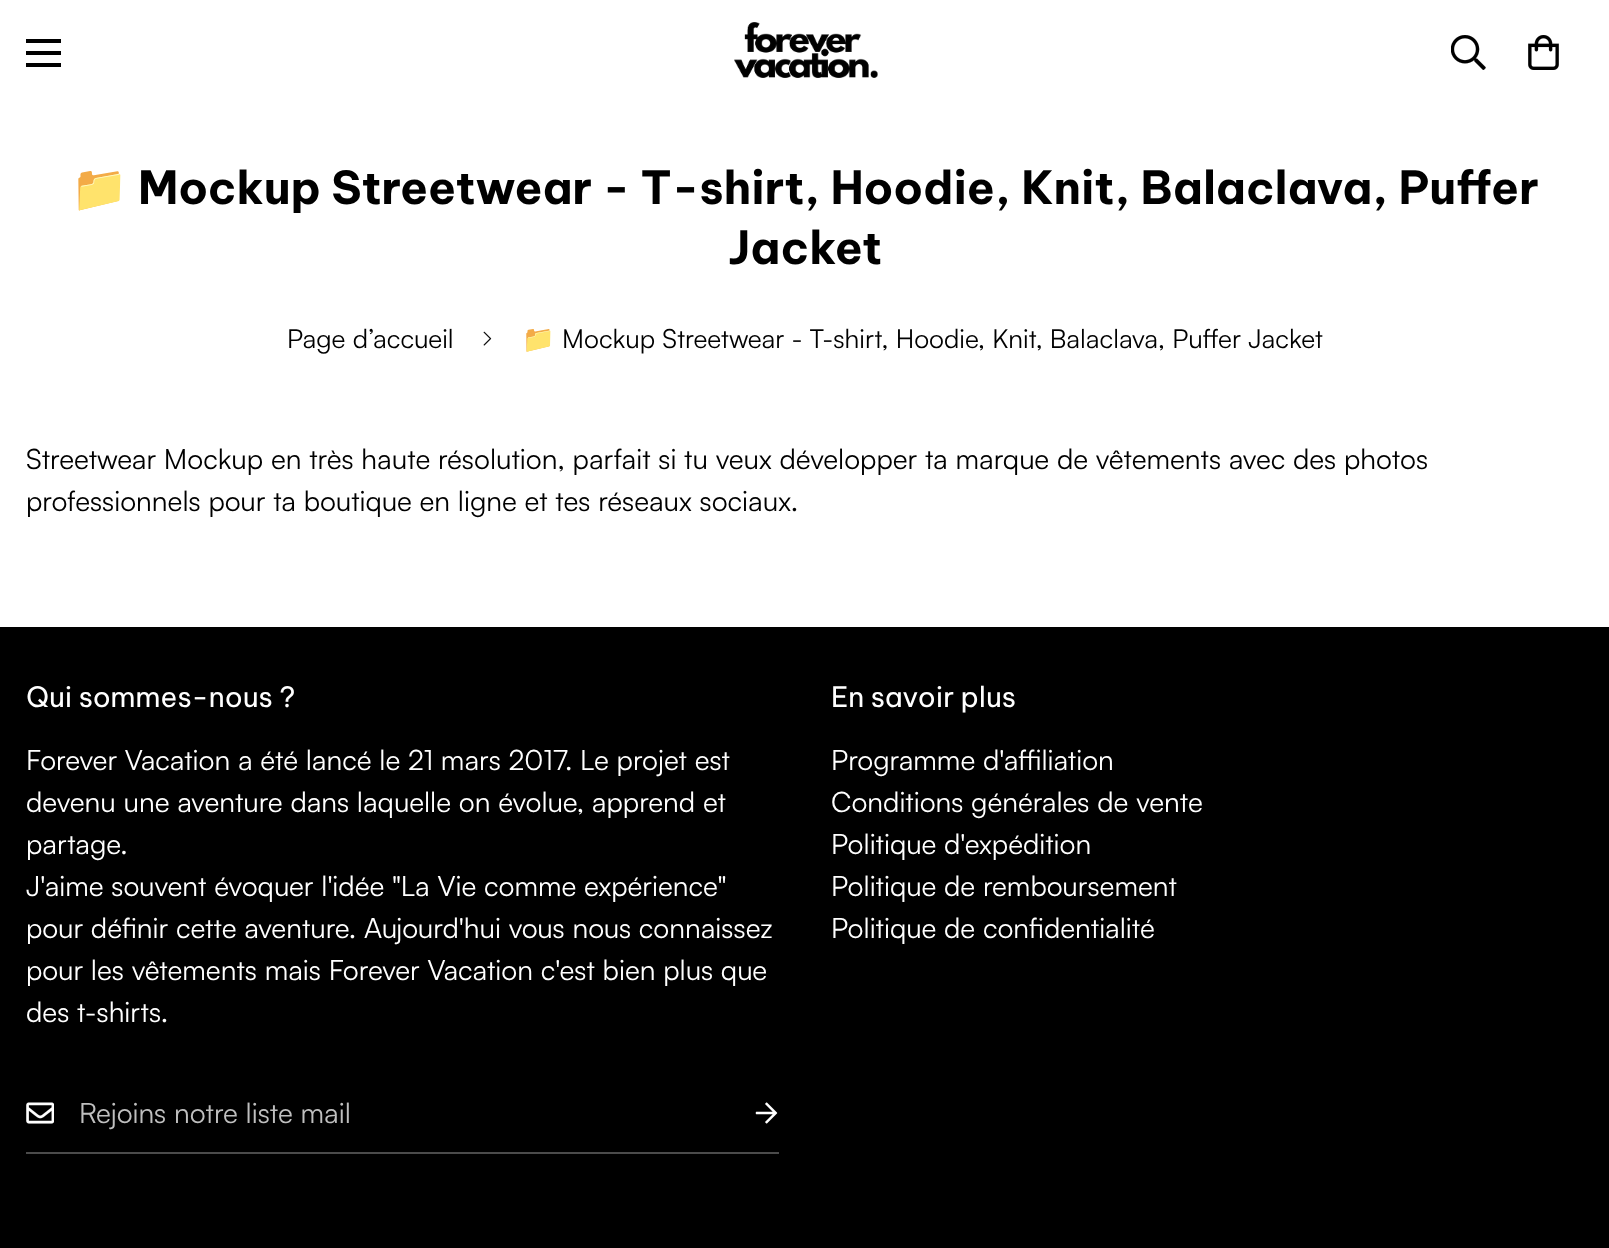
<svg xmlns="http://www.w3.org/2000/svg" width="1609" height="1248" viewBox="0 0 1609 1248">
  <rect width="100%" height="100%" fill="#ffffff"/>
  <rect x="26" y="51" width="35" height="4" fill="#000000"/>
  <rect x="26" y="39" width="35" height="4" fill="#000000"/>
  <rect x="26" y="63" width="35" height="4" fill="#000000"/>
  <image x="734" y="22" width="144" height="56" href="img1.png"/>
  <image x="1451" y="35" width="35" height="35" href="img2.png"/>
  <image x="1528" y="35" width="31" height="35" href="img3.png"/>
  <text x="71" y="204" font-family="Noto Color Emoji" font-size="45.5" font-weight="bold" fill="#000000">📁</text>
  <text x="138" y="204" font-family="Be Vietnam Pro" font-size="45.5" font-weight="bold" fill="#000000">Mockup Streetwear - T-shirt, Hoodie, Knit, Balaclava, Puffer</text>
  <text x="728" y="264" font-family="Be Vietnam Pro" font-size="45.5" font-weight="bold" fill="#000000">Jacket</text>
  <text x="287" y="348" font-family="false" font-size="26.25" fill="#000000">Page d’accueil</text>
  <image x="483" y="331" width="9" height="15" href="img4.png"/>
  <text x="522" y="348" font-family="Noto Color Emoji" font-size="26.25" fill="#000000">📁</text>
  <text x="562" y="348" font-family="false" font-size="26.25" fill="#000000">Mockup Streetwear - T-shirt, Hoodie, Knit, Balaclava, Puffer Jacket</text>
  <text x="26" y="469" font-family="false" font-size="28" fill="#000000">Streetwear Mockup en très haute résolution, parfait si tu veux développer ta marque de vêtements avec des photos</text>
  <text x="26" y="511" font-family="false" font-size="28" fill="#000000">professionnels pour ta boutique en ligne et tes réseaux sociaux.</text>
  <rect x="0" y="627" width="1609" height="621" fill="#000000"/>
  <text x="26" y="707" font-family="Be Vietnam Pro" font-size="28" fill="#ffffff">Qui sommes-nous ?</text>
  <text x="26" y="770" font-family="false" font-size="28" fill="#ffffff">Forever Vacation a été lancé le 21 mars 2017. Le projet est</text>
  <text x="26" y="812" font-family="false" font-size="28" fill="#ffffff">devenu une aventure dans laquelle on évolue, apprend et</text>
  <text x="26" y="854" font-family="false" font-size="28" fill="#ffffff">partage.</text>
  <text x="26" y="896" font-family="false" font-size="28" fill="#ffffff">J'aime souvent évoquer l'idée "La Vie comme expérience"</text>
  <text x="26" y="938" font-family="false" font-size="28" fill="#ffffff">pour définir cette aventure. Aujourd'hui vous nous connaissez</text>
  <text x="26" y="980" font-family="false" font-size="28" fill="#ffffff">pour les vêtements mais Forever Vacation c'est bien plus que</text>
  <text x="26" y="1022" font-family="false" font-size="28" fill="#ffffff">des t-shirts.</text>
  <image x="26" y="1102" width="28" height="22" href="img5.png"/>
  <rect x="26" y="1152" width="753" height="2" fill="#4b4b4b"/>
  <text x="79" y="1123" font-family="false" font-size="28" fill="#bfbfbf">Rejoins notre liste mail</text>
  <image x="755" y="1102" width="23" height="22" href="img6.png"/>
  <text x="831" y="707" font-family="Be Vietnam Pro" font-size="28" fill="#ffffff">En savoir plus</text>
  <text x="831" y="770" font-family="false" font-size="28" fill="#ffffff">Programme d'affiliation</text>
  <text x="831" y="812" font-family="false" font-size="28" fill="#ffffff">Conditions générales de vente</text>
  <text x="831" y="854" font-family="false" font-size="28" fill="#ffffff">Politique d'expédition</text>
  <text x="831" y="896" font-family="false" font-size="28" fill="#ffffff">Politique de remboursement</text>
  <text x="831" y="938" font-family="false" font-size="28" fill="#ffffff">Politique de confidentialité</text>
</svg>
